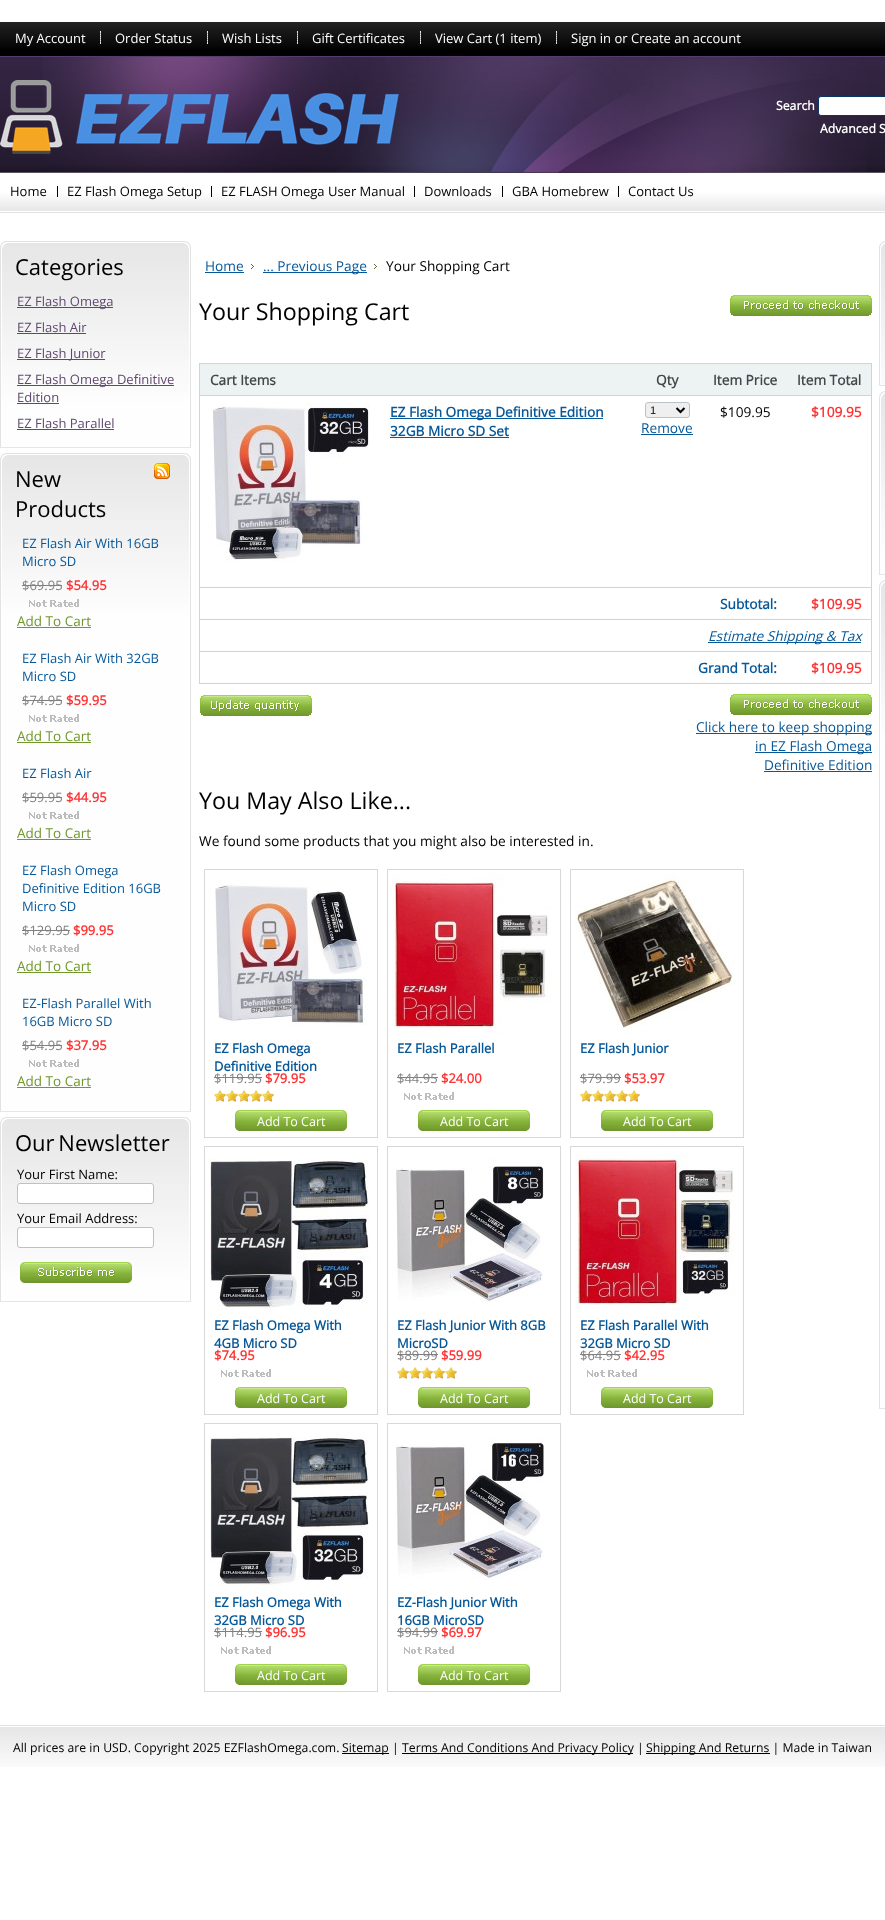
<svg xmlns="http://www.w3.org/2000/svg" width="885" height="1920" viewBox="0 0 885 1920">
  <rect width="100%" height="100%" fill="#ffffff"/>
  <image x="0" y="22" width="885" height="191" href="img1.png"/>
  <text x="15" y="43" font-family="Open Sans" font-size="13" fill="#ffffff">My Account</text>
  <image x="100" y="31" width="1" height="13" href="img2.png"/>
  <text x="115" y="43" font-family="Open Sans" font-size="13" fill="#ffffff">Order Status</text>
  <image x="207" y="31" width="1" height="13" href="img2.png"/>
  <text x="222" y="43" font-family="Open Sans" font-size="13" fill="#ffffff">Wish Lists</text>
  <image x="297" y="31" width="1" height="13" href="img2.png"/>
  <text x="312" y="43" font-family="Open Sans" font-size="13" fill="#ffffff">Gift Certificates</text>
  <image x="420" y="31" width="1" height="13" href="img2.png"/>
  <text x="435" y="43" font-family="Open Sans" font-size="13" fill="#ffffff">View Cart (1 item)</text>
  <image x="556" y="31" width="1" height="13" href="img2.png"/>
  <text x="571" y="43" font-family="Open Sans" font-size="13" fill="#ffffff">Sign in or Create an account</text>
  <image x="43" y="57" width="824" height="116" href="img3.png"/>
  <image x="0" y="80" width="399" height="74" href="img4.png"/>
  <text x="776" y="110" font-family="Open Sans" font-size="12.25" font-weight="bold" fill="#ffffff">Search</text>
  <rect x="818.5" y="96.5" width="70" height="19" rx="2.5" fill="#ffffff" stroke="#093465"/>
  <text x="820" y="133" font-family="Open Sans" font-size="12.25" font-weight="bold" fill="#ffffff">Advanced S</text>
  <text x="10" y="196" font-family="Open Sans" font-size="13" fill="#000000">Home</text>
  <rect x="57" y="186" width="1" height="11" fill="#000000"/>
  <text x="67" y="196" font-family="Open Sans" font-size="13" fill="#000000">EZ Flash Omega Setup</text>
  <rect x="211" y="186" width="1" height="11" fill="#000000"/>
  <text x="221" y="196" font-family="Open Sans" font-size="13" fill="#000000">EZ FLASH Omega User Manual</text>
  <rect x="414" y="186" width="1" height="11" fill="#000000"/>
  <text x="424" y="196" font-family="Open Sans" font-size="13" fill="#000000">Downloads</text>
  <rect x="502" y="186" width="1" height="11" fill="#000000"/>
  <text x="512" y="196" font-family="Open Sans" font-size="13" fill="#000000">GBA Homebrew</text>
  <rect x="618" y="186" width="1" height="11" fill="#000000"/>
  <text x="628" y="196" font-family="Open Sans" font-size="13" fill="#000000">Contact Us</text>
  <image x="0" y="241" width="191" height="206" href="img5.png"/>
  <rect x="0" y="447" width="191" height="1" fill="#e6e6e6"/>
  <text x="15" y="275" font-family="Open Sans" font-size="22" fill="#000000">Categories</text>
  <rect x="17" y="307" width="96" height="1" fill="#61486f"/>
  <text x="17" y="306" font-family="Open Sans" font-size="13" fill="#61486f">EZ Flash Omega</text>
  <text x="17" y="332" font-family="Open Sans" font-size="13" fill="#61486f">EZ Flash Air</text>
  <rect x="17" y="333" width="69" height="1" fill="#61486f"/>
  <rect x="17" y="359" width="88" height="1" fill="#61486f"/>
  <text x="17" y="358" font-family="Open Sans" font-size="13" fill="#61486f">EZ Flash Junior</text>
  <rect x="17" y="385" width="157" height="1" fill="#61486f"/>
  <text x="17" y="384" font-family="Open Sans" font-size="13" fill="#61486f">EZ Flash Omega Definitive</text>
  <text x="17" y="402" font-family="Open Sans" font-size="13" fill="#61486f">Edition</text>
  <rect x="17" y="403" width="42" height="1" fill="#61486f"/>
  <text x="17" y="428" font-family="Open Sans" font-size="13" fill="#61486f">EZ Flash Parallel</text>
  <rect x="17" y="429" width="97" height="1" fill="#61486f"/>
  <image x="0" y="453" width="191" height="658" href="img6.png"/>
  <rect x="0" y="1111" width="191" height="1" fill="#e6e6e6"/>
  <text x="15" y="487" font-family="Open Sans" font-size="22" fill="#000000">New</text>
  <image x="154" y="463" width="16" height="16" href="img7.png"/>
  <text x="15" y="517" font-family="Open Sans" font-size="22" fill="#000000">Products</text>
  <text x="22" y="548" font-family="Open Sans" font-size="13" fill="#075899">EZ Flash Air With 16GB</text>
  <text x="22" y="566" font-family="Open Sans" font-size="13" fill="#075899">Micro SD</text>
  <text x="22" y="590" font-family="Open Sans" font-size="13" fill="#808080">$69.95</text>
  <rect x="22" y="585" width="40" height="1" fill="#808080"/>
  <text x="66" y="590" font-family="Open Sans" font-size="13" font-weight="bold" fill="#ff3333">$54.95</text>
  <image x="29" y="599" width="50" height="8" href="img8.png"/>
  <text x="17" y="626" font-family="Open Sans" font-size="13.5" fill="#70982d">Add To Cart</text>
  <rect x="17" y="627" width="74" height="1" fill="#70982d"/>
  <text x="22" y="663" font-family="Open Sans" font-size="13" fill="#075899">EZ Flash Air With 32GB</text>
  <text x="22" y="681" font-family="Open Sans" font-size="13" fill="#075899">Micro SD</text>
  <text x="22" y="705" font-family="Open Sans" font-size="13" fill="#808080">$74.95</text>
  <rect x="22" y="700" width="40" height="1" fill="#808080"/>
  <text x="66" y="705" font-family="Open Sans" font-size="13" font-weight="bold" fill="#ff3333">$59.95</text>
  <image x="29" y="714" width="50" height="8" href="img9.png"/>
  <text x="17" y="741" font-family="Open Sans" font-size="13.5" fill="#70982d">Add To Cart</text>
  <rect x="17" y="742" width="74" height="1" fill="#70982d"/>
  <text x="22" y="778" font-family="Open Sans" font-size="13" fill="#075899">EZ Flash Air</text>
  <text x="22" y="802" font-family="Open Sans" font-size="13" fill="#808080">$59.95</text>
  <rect x="22" y="797" width="40" height="1" fill="#808080"/>
  <text x="66" y="802" font-family="Open Sans" font-size="13" font-weight="bold" fill="#ff3333">$44.95</text>
  <image x="29" y="811" width="50" height="8" href="img9.png"/>
  <text x="17" y="838" font-family="Open Sans" font-size="13.5" fill="#70982d">Add To Cart</text>
  <rect x="17" y="839" width="74" height="1" fill="#70982d"/>
  <text x="22" y="875" font-family="Open Sans" font-size="13" fill="#075899">EZ Flash Omega</text>
  <text x="22" y="893" font-family="Open Sans" font-size="13" fill="#075899">Definitive Edition 16GB</text>
  <text x="22" y="911" font-family="Open Sans" font-size="13" fill="#075899">Micro SD</text>
  <text x="22" y="935" font-family="Open Sans" font-size="13" fill="#808080">$129.95</text>
  <rect x="22" y="930" width="48" height="1" fill="#808080"/>
  <text x="73" y="935" font-family="Open Sans" font-size="13" font-weight="bold" fill="#ff3333">$99.95</text>
  <image x="29" y="944" width="50" height="8" href="img9.png"/>
  <text x="17" y="971" font-family="Open Sans" font-size="13.5" fill="#70982d">Add To Cart</text>
  <rect x="17" y="972" width="74" height="1" fill="#70982d"/>
  <text x="22" y="1008" font-family="Open Sans" font-size="13" fill="#075899">EZ-Flash Parallel With</text>
  <text x="22" y="1026" font-family="Open Sans" font-size="13" fill="#075899">16GB Micro SD</text>
  <text x="22" y="1050" font-family="Open Sans" font-size="13" fill="#808080">$54.95</text>
  <rect x="22" y="1045" width="40" height="1" fill="#808080"/>
  <text x="66" y="1050" font-family="Open Sans" font-size="13" font-weight="bold" fill="#ff3333">$37.95</text>
  <image x="29" y="1059" width="50" height="8" href="img9.png"/>
  <text x="17" y="1086" font-family="Open Sans" font-size="13.5" fill="#70982d">Add To Cart</text>
  <rect x="17" y="1087" width="74" height="1" fill="#70982d"/>
  <image x="0" y="1117" width="191" height="184" href="img10.png"/>
  <rect x="0" y="1301" width="191" height="1" fill="#e6e6e6"/>
  <text x="15" y="1151" word-spacing="-2" font-family="Open Sans" font-size="22" fill="#000000">Our Newsletter</text>
  <text x="17" y="1179" font-family="Open Sans" font-size="13" fill="#000000">Your First Name:</text>
  <rect x="17.5" y="1183.5" width="136" height="20" rx="2.5" fill="#ffffff" stroke="#bac1c7"/>
  <text x="17" y="1223" font-family="Open Sans" font-size="13" fill="#000000">Your Email Address:</text>
  <rect x="17.5" y="1227.5" width="136" height="20" rx="2.5" fill="#ffffff" stroke="#bac1c7"/>
  <image x="20" y="1262" width="112" height="21" href="img11.png"/>
  <text x="205" y="271" font-family="Open Sans" font-size="13.7" fill="#075899">Home</text>
  <rect x="205" y="272" width="39" height="1" fill="#075899"/>
  <image x="251" y="264" width="3" height="5" href="img12.png"/>
  <rect x="263" y="272" width="104" height="1" fill="#075899"/>
  <text x="263" y="271" font-family="Open Sans" font-size="13.7" fill="#075899">... Previous Page</text>
  <image x="374" y="264" width="3" height="5" href="img12.png"/>
  <text x="386" y="271" font-family="Open Sans" font-size="13.7" fill="#000000">Your Shopping Cart</text>
  <text x="199" y="320" font-family="Open Sans" font-size="23.25" fill="#000000">Your Shopping Cart</text>
  <image x="730" y="295" width="142" height="21" href="img13.png"/>
  <rect x="199.5" y="363.5" width="672" height="320" fill="none" stroke="#c7d7db"/>
  <rect x="200" y="364" width="671" height="31" fill="#edf2f3"/>
  <rect x="200" y="395" width="671" height="1" fill="#c7d7db"/>
  <text x="210" y="385" font-family="Open Sans" font-size="13.7" font-weight="bold" fill="#424748">Cart Items</text>
  <text x="656" y="385" font-family="Open Sans" font-size="13.7" font-weight="bold" fill="#424748">Qty</text>
  <text x="713" y="385" font-family="Open Sans" font-size="13.7" font-weight="bold" fill="#424748">Item Price</text>
  <text x="797" y="385" font-family="Open Sans" font-size="13.7" font-weight="bold" fill="#424748">Item Total</text>
  <image x="211" y="402" width="159" height="160" href="img14.png"/>
  <rect x="390" y="418" width="213" height="1" fill="#075899"/>
  <text x="390" y="417" font-family="Open Sans" font-size="13.7" font-weight="bold" fill="#075899">EZ Flash Omega Definitive Edition</text>
  <text x="390" y="436" font-family="Open Sans" font-size="13.7" font-weight="bold" fill="#075899">32GB Micro SD Set</text>
  <rect x="390" y="437" width="119" height="1" fill="#075899"/>
  <rect x="645.5" y="402.5" width="44" height="15" rx="2.5" fill="#efefef" stroke="#bac1c7"/>
  <path d="M676.5 408L680.5 412L684.5 408" fill="none" stroke="#000000" stroke-width="2"/>
  <text x="650" y="414" font-family="Liberation Sans" font-size="11" fill="#000000">1</text>
  <text x="641" y="433" font-family="Open Sans" font-size="13.7" fill="#075899">Remove</text>
  <rect x="641" y="434" width="52" height="1" fill="#075899"/>
  <text x="720" y="417" font-family="Open Sans" font-size="13.7" fill="#000000">$109.95</text>
  <text x="811" y="417" font-family="Open Sans" font-size="13.7" font-weight="bold" fill="#ff3333">$109.95</text>
  <rect x="200" y="587" width="671" height="1" fill="#c7d7db"/>
  <text x="720" y="609" font-family="Open Sans" font-size="13.7" font-weight="bold" fill="#075899">Subtotal:</text>
  <text x="811" y="609" font-family="Open Sans" font-size="13.7" font-weight="bold" fill="#ff3333">$109.95</text>
  <rect x="200" y="619" width="671" height="1" fill="#c7d7db"/>
  <rect x="708" y="642" width="153" height="1" fill="#075899"/>
  <text x="708" y="641" font-family="Open Sans" font-size="13.7" font-style="italic" fill="#075899">Estimate Shipping &amp; Tax</text>
  <rect x="200" y="651" width="671" height="1" fill="#c7d7db"/>
  <text x="698" y="673" font-family="Open Sans" font-size="13.7" font-weight="bold" fill="#075899">Grand Total:</text>
  <text x="811" y="673" font-family="Open Sans" font-size="13.7" font-weight="bold" fill="#ff3333">$109.95</text>
  <image x="200" y="695" width="112" height="21" href="img15.png"/>
  <image x="730" y="694" width="142" height="21" href="img13.png"/>
  <rect x="696" y="733" width="176" height="1" fill="#075899"/>
  <text x="696" y="732" font-family="Open Sans" font-size="13.7" fill="#075899">Click here to keep shopping</text>
  <rect x="755" y="752" width="117" height="1" fill="#075899"/>
  <text x="755" y="751" font-family="Open Sans" font-size="13.7" fill="#075899">in EZ Flash Omega</text>
  <text x="764" y="770" font-family="Open Sans" font-size="13.7" fill="#075899">Definitive Edition</text>
  <rect x="764" y="771" width="108" height="1" fill="#075899"/>
  <text x="199" y="809" font-family="Open Sans" font-size="23.25" fill="#000000">You May Also Like...</text>
  <text x="199" y="846" font-family="Open Sans" font-size="13.7" fill="#000000">We found some products that you might also be interested in.</text>
  <rect x="204.5" y="869.5" width="173" height="268" fill="none" stroke="#d8d8d8"/>
  <image x="215" y="884" width="154" height="142" href="img16.png"/>
  <text x="214" y="1053" font-family="Open Sans" font-size="13" font-weight="bold" fill="#075899">EZ Flash Omega</text>
  <text x="214" y="1071" font-family="Open Sans" font-size="13" font-weight="bold" fill="#075899">Definitive Edition</text>
  <text x="214" y="1083" font-family="Open Sans" font-size="13" fill="#808080">$119.95</text>
  <rect x="214" y="1077" width="48" height="1" fill="#808080"/>
  <text x="265" y="1083" font-family="Open Sans" font-size="13" font-weight="bold" fill="#ff3333">$79.95</text>
  <image x="214" y="1090" width="60" height="12" href="img17.png"/>
  <image x="235" y="1110" width="112" height="21" href="img18.png"/>
  <text x="257" y="1126" font-family="Open Sans" font-size="12.5" fill="#ffffff">Add To Cart</text>
  <rect x="387.5" y="869.5" width="173" height="268" fill="none" stroke="#d8d8d8"/>
  <image x="392" y="874" width="159" height="160" href="img19.png"/>
  <text x="397" y="1053" font-family="Open Sans" font-size="13" font-weight="bold" fill="#075899">EZ Flash Parallel</text>
  <text x="397" y="1083" font-family="Open Sans" font-size="13" fill="#808080">$44.95</text>
  <rect x="397" y="1077" width="41" height="1" fill="#808080"/>
  <text x="441" y="1083" font-family="Open Sans" font-size="13" font-weight="bold" fill="#ff3333">$24.00</text>
  <image x="404" y="1092" width="50" height="8" href="img20.png"/>
  <image x="418" y="1110" width="112" height="21" href="img18.png"/>
  <text x="440" y="1126" font-family="Open Sans" font-size="12.5" fill="#ffffff">Add To Cart</text>
  <rect x="570.5" y="869.5" width="173" height="268" fill="none" stroke="#d8d8d8"/>
  <image x="575" y="874" width="160" height="160" href="img21.png"/>
  <text x="580" y="1053" font-family="Open Sans" font-size="13" font-weight="bold" fill="#075899">EZ Flash Junior</text>
  <text x="580" y="1083" font-family="Open Sans" font-size="13" fill="#808080">$79.99</text>
  <rect x="580" y="1077" width="41" height="1" fill="#808080"/>
  <text x="624" y="1083" font-family="Open Sans" font-size="13" font-weight="bold" fill="#ff3333">$53.97</text>
  <image x="580" y="1090" width="60" height="12" href="img17.png"/>
  <image x="601" y="1110" width="112" height="21" href="img18.png"/>
  <text x="623" y="1126" font-family="Open Sans" font-size="12.5" fill="#ffffff">Add To Cart</text>
  <rect x="204.5" y="1146.5" width="173" height="268" fill="none" stroke="#d8d8d8"/>
  <image x="209" y="1159" width="160" height="152" href="img22.png"/>
  <text x="214" y="1330" font-family="Open Sans" font-size="13" font-weight="bold" fill="#075899">EZ Flash Omega With</text>
  <text x="214" y="1348" font-family="Open Sans" font-size="13" font-weight="bold" fill="#075899">4GB Micro SD</text>
  <text x="214" y="1360" font-family="Open Sans" font-size="13" font-weight="bold" fill="#ff3333">$74.95</text>
  <image x="221" y="1369" width="50" height="8" href="img20.png"/>
  <image x="235" y="1387" width="112" height="21" href="img18.png"/>
  <text x="257" y="1403" font-family="Open Sans" font-size="12.5" fill="#ffffff">Add To Cart</text>
  <rect x="387.5" y="1146.5" width="173" height="268" fill="none" stroke="#d8d8d8"/>
  <image x="396" y="1159" width="148" height="144" href="img23.png"/>
  <text x="397" y="1330" font-family="Open Sans" font-size="13" font-weight="bold" fill="#075899">EZ Flash Junior With 8GB</text>
  <text x="397" y="1348" font-family="Open Sans" font-size="13" font-weight="bold" fill="#075899">MicroSD</text>
  <text x="397" y="1360" font-family="Open Sans" font-size="13" fill="#808080">$89.99</text>
  <rect x="397" y="1354" width="41" height="1" fill="#808080"/>
  <text x="441" y="1360" font-family="Open Sans" font-size="13" font-weight="bold" fill="#ff3333">$59.99</text>
  <image x="397" y="1367" width="60" height="12" href="img17.png"/>
  <image x="418" y="1387" width="112" height="21" href="img18.png"/>
  <text x="440" y="1403" font-family="Open Sans" font-size="12.5" fill="#ffffff">Add To Cart</text>
  <rect x="570.5" y="1146.5" width="173" height="268" fill="none" stroke="#d8d8d8"/>
  <image x="575" y="1151" width="160" height="160" href="img24.png"/>
  <text x="580" y="1330" font-family="Open Sans" font-size="13" font-weight="bold" fill="#075899">EZ Flash Parallel With</text>
  <text x="580" y="1348" font-family="Open Sans" font-size="13" font-weight="bold" fill="#075899">32GB Micro SD</text>
  <text x="580" y="1360" font-family="Open Sans" font-size="13" fill="#808080">$64.95</text>
  <rect x="580" y="1354" width="41" height="1" fill="#808080"/>
  <text x="624" y="1360" font-family="Open Sans" font-size="13" font-weight="bold" fill="#ff3333">$42.95</text>
  <image x="587" y="1369" width="50" height="8" href="img20.png"/>
  <image x="601" y="1387" width="112" height="21" href="img18.png"/>
  <text x="623" y="1403" font-family="Open Sans" font-size="12.5" fill="#ffffff">Add To Cart</text>
  <rect x="204.5" y="1423.5" width="173" height="268" fill="none" stroke="#d8d8d8"/>
  <image x="209" y="1436" width="160" height="152" href="img25.png"/>
  <text x="214" y="1607" font-family="Open Sans" font-size="13" font-weight="bold" fill="#075899">EZ Flash Omega With</text>
  <text x="214" y="1625" font-family="Open Sans" font-size="13" font-weight="bold" fill="#075899">32GB Micro SD</text>
  <text x="214" y="1637" font-family="Open Sans" font-size="13" fill="#808080">$114.95</text>
  <rect x="214" y="1631" width="48" height="1" fill="#808080"/>
  <text x="265" y="1637" font-family="Open Sans" font-size="13" font-weight="bold" fill="#ff3333">$96.95</text>
  <image x="221" y="1646" width="50" height="8" href="img20.png"/>
  <image x="235" y="1664" width="112" height="21" href="img18.png"/>
  <text x="257" y="1680" font-family="Open Sans" font-size="12.5" fill="#ffffff">Add To Cart</text>
  <rect x="387.5" y="1423.5" width="173" height="268" fill="none" stroke="#d8d8d8"/>
  <image x="396" y="1437" width="148" height="143" href="img26.png"/>
  <text x="397" y="1607" font-family="Open Sans" font-size="13" font-weight="bold" fill="#075899">EZ-Flash Junior With</text>
  <text x="397" y="1625" font-family="Open Sans" font-size="13" font-weight="bold" fill="#075899">16GB MicroSD</text>
  <text x="397" y="1637" font-family="Open Sans" font-size="13" fill="#808080">$94.99</text>
  <rect x="397" y="1631" width="41" height="1" fill="#808080"/>
  <text x="441" y="1637" font-family="Open Sans" font-size="13" font-weight="bold" fill="#ff3333">$69.97</text>
  <image x="404" y="1646" width="50" height="8" href="img20.png"/>
  <image x="418" y="1664" width="112" height="21" href="img18.png"/>
  <text x="440" y="1680" font-family="Open Sans" font-size="12.5" fill="#ffffff">Add To Cart</text>
  <image x="879" y="241" width="6" height="144" href="img27.png"/>
  <rect x="879" y="385" width="6" height="1" fill="#e6e6e6"/>
  <image x="879" y="391" width="6" height="183" href="img28.png"/>
  <rect x="879" y="574" width="6" height="1" fill="#e6e6e6"/>
  <image x="879" y="580" width="6" height="828" href="img29.png"/>
  <rect x="879" y="1408" width="6" height="1" fill="#e6e6e6"/>
  <image x="0" y="1725" width="885" height="42" href="img30.png"/>
  <text x="13" y="1752" font-family="Open Sans" font-size="12.25" fill="#000000">All prices are in USD. Copyright 2025 EZFlashOmega.com.</text>
  <rect x="342" y="1753" width="47" height="1" fill="#000000"/>
  <text x="342" y="1752" font-family="Open Sans" font-size="12.25" fill="#000000">Sitemap |</text>
  <rect x="402" y="1753" width="231" height="1" fill="#000000"/>
  <text x="402" y="1752" font-family="Open Sans" font-size="12.25" fill="#000000">Terms And Conditions And Privacy Policy |</text>
  <rect x="646" y="1753" width="124" height="1" fill="#000000"/>
  <text x="646" y="1752" font-family="Open Sans" font-size="12.25" fill="#000000">Shipping And Returns | Made in Taiwan</text>
</svg>
